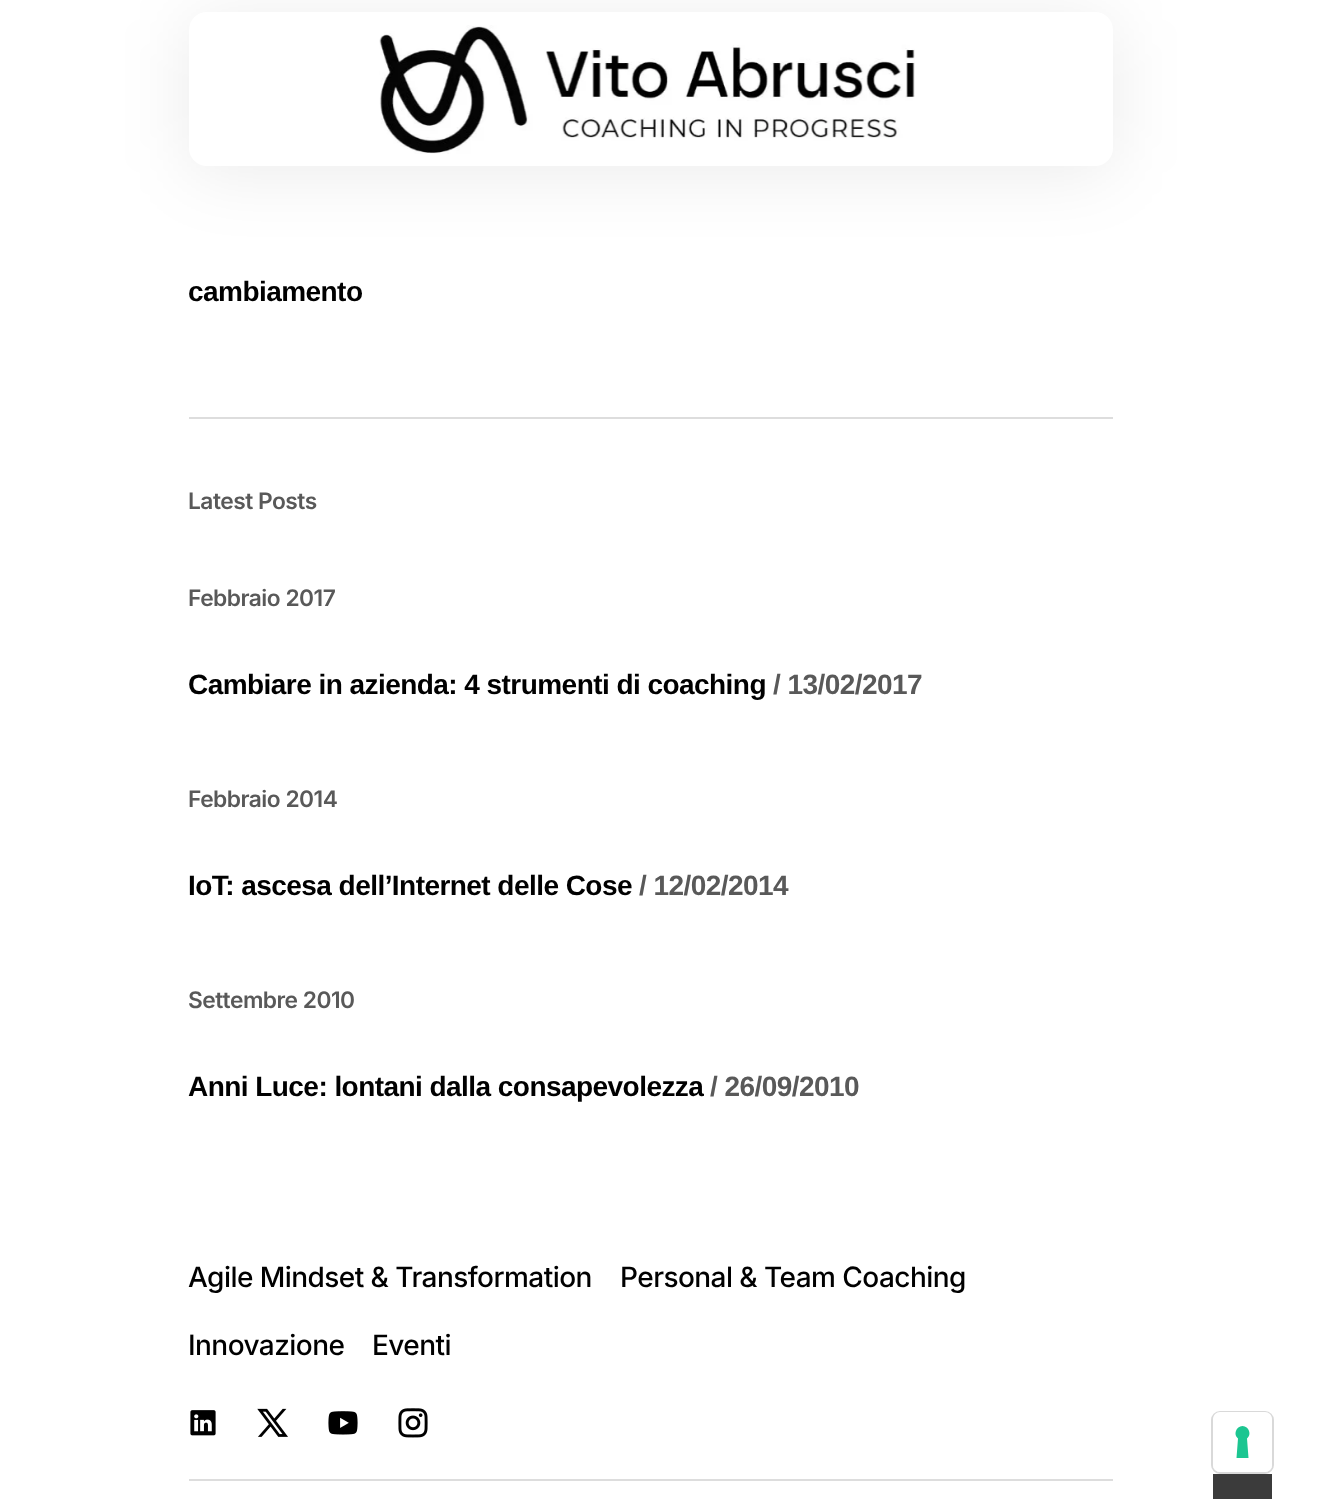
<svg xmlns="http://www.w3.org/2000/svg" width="1325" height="1499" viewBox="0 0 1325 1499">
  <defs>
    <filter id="blur1" x="-50%" y="-200%" width="200%" height="500%"><feGaussianBlur stdDeviation="35"/></filter>
  </defs>
  <rect width="100%" height="100%" fill="#ffffff"/>
  <rect x="189" y="19" width="924" height="154" rx="18" fill="#212121" fill-opacity="0.08" filter="url(#blur1)"/>
  <rect x="189" y="12" width="924" height="154" rx="18" fill="#ffffff"/>
  <image x="379" y="25" width="536" height="129" href="img1.png"/>
  <text x="188" y="301" font-family="Liberation Sans" font-size="28" font-weight="bold" letter-spacing="-0.55" fill="#000000">cambiamento</text>
  <rect x="189" y="417" width="924" height="2" fill="#dddddd"/>
  <text x="188" y="509" font-family="Inter" font-size="22.75" font-weight="600" letter-spacing="-0.5" fill="#595959">Latest Posts</text>
  <text x="188" y="606" font-family="Inter" font-size="22.75" font-weight="600" letter-spacing="-0.5" fill="#595959">Febbraio 2017</text>
  <text x="188" y="694" font-family="Liberation Sans" font-size="28" font-weight="bold" letter-spacing="-0.55" fill="#000000">Cambiare in azienda: 4 strumenti di coaching</text>
  <text x="773" y="694" font-family="Liberation Sans" font-size="28" font-weight="bold" letter-spacing="-0.55" fill="#595959">/ 13/02/2017</text>
  <text x="188" y="807" font-family="Inter" font-size="22.75" font-weight="600" letter-spacing="-0.5" fill="#595959">Febbraio 2014</text>
  <text x="188" y="895" font-family="Liberation Sans" font-size="28" font-weight="bold" letter-spacing="-0.55" fill="#000000">IoT: ascesa dell’Internet delle Cose</text>
  <text x="639" y="895" font-family="Liberation Sans" font-size="28" font-weight="bold" letter-spacing="-0.55" fill="#595959">/ 12/02/2014</text>
  <text x="188" y="1008" font-family="Inter" font-size="22.75" font-weight="600" letter-spacing="-0.5" fill="#595959">Settembre 2010</text>
  <text x="188" y="1096" font-family="Liberation Sans" font-size="28" font-weight="bold" letter-spacing="-0.55" fill="#000000">Anni Luce: lontani dalla consapevolezza</text>
  <text x="710" y="1096" font-family="Liberation Sans" font-size="28" font-weight="bold" letter-spacing="-0.55" fill="#595959">/ 26/09/2010</text>
  <text x="188" y="1287" font-family="Inter" font-size="28" font-weight="500" letter-spacing="-0.55" fill="#000000">Agile Mindset &amp; Transformation</text>
  <text x="620" y="1287" font-family="Inter" font-size="28" font-weight="500" letter-spacing="-0.55" fill="#000000">Personal &amp; Team Coaching</text>
  <text x="188" y="1355" font-family="Inter" font-size="28" font-weight="500" letter-spacing="-0.55" fill="#000000">Innovazione</text>
  <text x="372" y="1355" font-family="Inter" font-size="28" font-weight="500" letter-spacing="-0.55" fill="#000000">Eventi</text>
  <image x="190" y="1410" width="26" height="26" href="img2.png"/>
  <image x="257" y="1408" width="31" height="29" href="img3.png"/>
  <image x="328" y="1411" width="30" height="24" href="img4.png"/>
  <image x="398" y="1408" width="30" height="30" href="img5.png"/>
  <rect x="189" y="1479" width="924" height="2" fill="#dddddd"/>
  <rect x="1212" y="1412" width="61" height="61" rx="8" fill="none" stroke="#d9d9d9" stroke-width="2"/>
  <rect x="1213" y="1412" width="59" height="60" rx="7" fill="#ffffff"/>
  <path d="M1242.5 1426C1249 1426.5 1252 1434.5 1247 1438.5L1248.5 1458H1236.5L1238 1438.5C1233 1434.5 1236 1426.5 1242.5 1426Z" fill="#1cc691" fill-rule="evenodd"/>
  <rect x="1213" y="1474" width="59" height="25" fill="#3b3b3b"/>
</svg>
